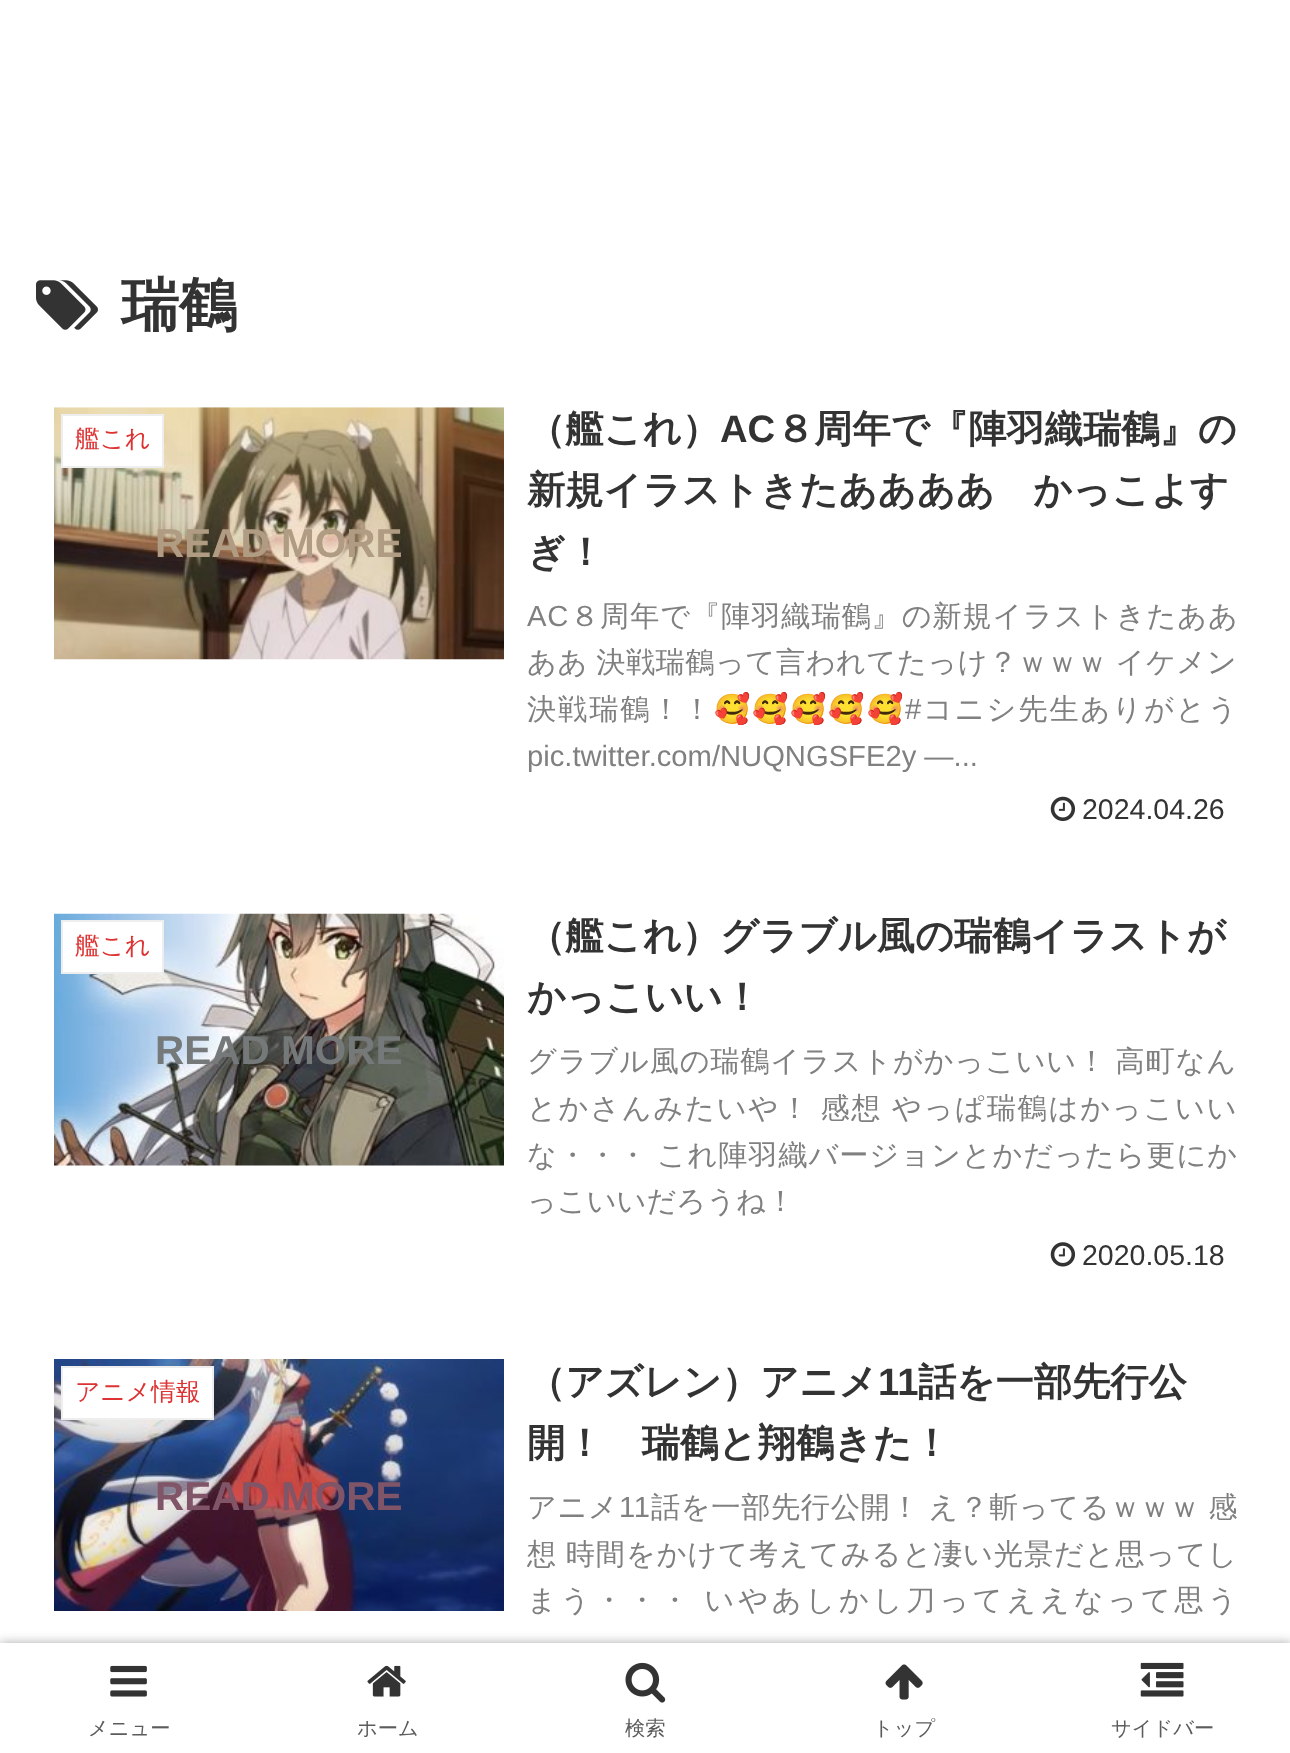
<svg xmlns="http://www.w3.org/2000/svg" width="1290" height="1753" viewBox="0 0 1290 1753">
  <defs>
    <filter id="blur1" x="-50%" y="-200%" width="200%" height="500%"><feGaussianBlur stdDeviation="5.5"/></filter>
  </defs>
  <rect width="100%" height="100%" fill="#ffffff"/>
  <image x="36" y="280" width="62" height="50" href="img1.png"/>
  <text x="121" y="325" font-family="WenQuanYi Zen Hei" font-size="58" font-weight="bold" fill="#333333">瑞鶴</text>
  <image x="54" y="407" width="450" height="253" href="img2.png"/>
  <rect x="62" y="415" width="101" height="52" fill="#ffffff" stroke="#eeeeee" stroke-width="2"/>
  <text x="75" y="447" font-family="WenQuanYi Zen Hei" font-size="24.75" font-weight="500" fill="#dd3333">艦これ</text>
  <text x="155" y="557" font-family="Liberation Sans" font-size="40.5" font-weight="bold" fill="#b09b83">READ MORE</text>
  <text x="527" y="442" font-family="WenQuanYi Zen Hei" font-size="38.25" font-weight="bold" fill="#333333">（艦これ）</text>
  <text x="720" y="442" font-family="Liberation Sans" font-size="38.25" font-weight="bold" fill="#333333">AC</text>
  <text x="776" y="442" font-family="WenQuanYi Zen Hei" font-size="38.25" font-weight="bold" fill="#333333">８周年で『陣羽織瑞鶴』の</text>
  <text x="527" y="503" font-family="WenQuanYi Zen Hei" font-size="38.25" font-weight="bold" fill="#333333">新規イラストきたああああ　かっこよす</text>
  <text x="527" y="565" font-family="WenQuanYi Zen Hei" font-size="38.25" font-weight="bold" fill="#333333">ぎ！</text>
  <text x="527" y="626" font-family="Liberation Sans" font-size="29.2" letter-spacing="0.9" fill="#808080">AC</text>
  <text x="570" y="626" font-family="WenQuanYi Zen Hei" font-size="29.2" font-weight="500" letter-spacing="0.9" fill="#808080">８周年で『陣羽織瑞鶴』の新規イラストきたああ</text>
  <text x="527" y="672" word-spacing="-1" font-family="WenQuanYi Zen Hei" font-size="29.2" font-weight="500" letter-spacing="0.55" fill="#808080">ああ 決戦瑞鶴って言われてたっけ？ｗｗｗ イケメン</text>
  <text x="527" y="719" font-family="WenQuanYi Zen Hei" font-size="29.2" font-weight="500" letter-spacing="1.9" fill="#808080">決戦瑞鶴！！</text>
  <text x="714" y="719" font-family="Noto Color Emoji" font-size="29.2" letter-spacing="1.9" fill="#808080">🥰🥰🥰🥰🥰</text>
  <text x="905" y="719" font-family="Liberation Sans" font-size="29.2" letter-spacing="1.9" fill="#808080">#</text>
  <text x="923" y="719" font-family="WenQuanYi Zen Hei" font-size="29.2" font-weight="500" letter-spacing="1.9" fill="#808080">コニシ先生ありがとう</text>
  <text x="527" y="766" font-family="Liberation Sans" font-size="29.2" fill="#808080">pic.twitter.com/NUQNGSFE2y —...</text>
  <image x="1050" y="796" width="26" height="25" href="img3.png"/>
  <text x="1082" y="819" font-family="Liberation Sans" font-size="28.5" fill="#333333">2024.04.26</text>
  <image x="54" y="913" width="450" height="253" href="img4.png"/>
  <rect x="62" y="921" width="101" height="52" fill="#ffffff" stroke="#eeeeee" stroke-width="2"/>
  <text x="75" y="954" font-family="WenQuanYi Zen Hei" font-size="24.75" font-weight="500" fill="#dd3333">艦これ</text>
  <text x="155" y="1064" font-family="Liberation Sans" font-size="40.5" font-weight="bold" fill="#75797a">READ MORE</text>
  <text x="527" y="949" font-family="WenQuanYi Zen Hei" font-size="38.25" font-weight="bold" fill="#333333">（艦これ）グラブル風の瑞鶴イラストが</text>
  <text x="527" y="1010" font-family="WenQuanYi Zen Hei" font-size="38.25" font-weight="bold" fill="#333333">かっこいい！</text>
  <text x="527" y="1071" word-spacing="-1" font-family="WenQuanYi Zen Hei" font-size="29.2" font-weight="500" letter-spacing="0.8" fill="#808080">グラブル風の瑞鶴イラストがかっこいい！ 高町なん</text>
  <text x="527" y="1118" word-spacing="-1" font-family="WenQuanYi Zen Hei" font-size="29.2" font-weight="500" letter-spacing="1.75" fill="#808080">とかさんみたいや！ 感想 やっぱ瑞鶴はかっこいい</text>
  <text x="527" y="1165" word-spacing="-1" font-family="WenQuanYi Zen Hei" font-size="29.2" font-weight="500" letter-spacing="0.9" fill="#808080">な・・・ これ陣羽織バージョンとかだったら更にか</text>
  <text x="527" y="1211" font-family="WenQuanYi Zen Hei" font-size="29.2" font-weight="500" fill="#808080">っこいいだろうね！</text>
  <image x="1050" y="1242" width="26" height="25" href="img5.png"/>
  <text x="1082" y="1265" font-family="Liberation Sans" font-size="28.5" fill="#333333">2020.05.18</text>
  <image x="54" y="1359" width="450" height="252" href="img6.png"/>
  <rect x="62" y="1367" width="151" height="52" fill="#ffffff" stroke="#eeeeee" stroke-width="2"/>
  <text x="75" y="1400" font-family="WenQuanYi Zen Hei" font-size="24.75" font-weight="500" fill="#dd3333">アニメ情報</text>
  <text x="155" y="1510" font-family="Liberation Sans" font-size="40.5" font-weight="bold" fill="#815568">READ MORE</text>
  <text x="527" y="1395" font-family="WenQuanYi Zen Hei" font-size="38.25" font-weight="bold" fill="#333333">（アズレン）アニメ</text>
  <text x="878" y="1395" font-family="Liberation Sans" font-size="38.25" font-weight="bold" fill="#333333">11</text>
  <text x="918" y="1395" font-family="WenQuanYi Zen Hei" font-size="38.25" font-weight="bold" fill="#333333">話を一部先行公</text>
  <text x="527" y="1456" font-family="WenQuanYi Zen Hei" font-size="38.25" font-weight="bold" fill="#333333">開！　瑞鶴と翔鶴きた！</text>
  <text x="527" y="1517" font-family="WenQuanYi Zen Hei" font-size="29.2" font-weight="500" letter-spacing="0.65" fill="#808080">アニメ</text>
  <text x="619" y="1517" font-family="Liberation Sans" font-size="29.2" letter-spacing="0.65" fill="#808080">11</text>
  <text x="651" y="1517" word-spacing="-1" font-family="WenQuanYi Zen Hei" font-size="29.2" font-weight="500" letter-spacing="0.65" fill="#808080">話を一部先行公開！ え？斬ってるｗｗｗ 感</text>
  <text x="527" y="1564" word-spacing="-1" font-family="WenQuanYi Zen Hei" font-size="29.2" font-weight="500" letter-spacing="0.9" fill="#808080">想 時間をかけて考えてみると凄い光景だと思ってし</text>
  <text x="527" y="1610" word-spacing="-1" font-family="WenQuanYi Zen Hei" font-size="29.2" font-weight="500" letter-spacing="3.75" fill="#808080">まう・・・ いやあしかし刀ってええなって思う</text>
  <rect x="0" y="1643" width="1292" height="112" fill="#a9a9a9" filter="url(#blur1)"/>
  <rect x="0" y="1643" width="1290" height="110" fill="#ffffff"/>
  <image x="110" y="1665" width="37" height="32" href="img7.png"/>
  <text x="88" y="1735" font-family="WenQuanYi Zen Hei" font-size="20.25" font-weight="500" fill="#5c5c5c">メニュー</text>
  <image x="367" y="1665" width="39" height="32" href="img8.png"/>
  <text x="357" y="1735" font-family="WenQuanYi Zen Hei" font-size="20.25" font-weight="500" fill="#5c5c5c">ホーム</text>
  <image x="625" y="1662" width="41" height="41" href="img9.png"/>
  <text x="625" y="1735" font-family="WenQuanYi Zen Hei" font-size="20.25" font-weight="500" fill="#5c5c5c">検索</text>
  <image x="885" y="1664" width="38" height="36" href="img10.png"/>
  <text x="873" y="1735" font-family="WenQuanYi Zen Hei" font-size="20.25" font-weight="500" fill="#5c5c5c">トップ</text>
  <image x="1140" y="1662" width="44" height="35" href="img11.png"/>
  <text x="1111" y="1735" font-family="WenQuanYi Zen Hei" font-size="20.25" font-weight="500" fill="#5c5c5c">サイドバー</text>
</svg>
